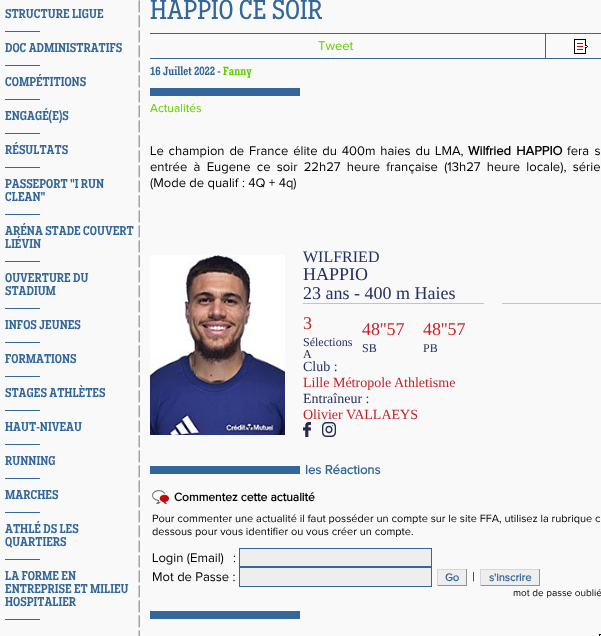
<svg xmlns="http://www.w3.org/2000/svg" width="601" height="636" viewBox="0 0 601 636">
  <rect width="100%" height="100%" fill="#f9f9f9"/>
  <image x="138" y="0" width="2" height="636" href="img1.png"/>
  <text x="5" y="18" font-family="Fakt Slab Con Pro" font-size="13" font-weight="600" fill="#336699">STRUCTURE LIGUE</text>
  <rect x="5" y="31" width="35" height="1" fill="#336699"/>
  <text x="5" y="52" font-family="Fakt Slab Con Pro" font-size="13" font-weight="600" fill="#336699">DOC ADMINISTRATIFS</text>
  <rect x="5" y="65" width="35" height="1" fill="#336699"/>
  <text x="5" y="86" font-family="Fakt Slab Con Pro" font-size="13" font-weight="600" fill="#336699">COMPÉTITIONS</text>
  <rect x="5" y="99" width="35" height="1" fill="#336699"/>
  <text x="5" y="120" font-family="Fakt Slab Con Pro" font-size="13" font-weight="600" fill="#336699">ENGAGÉ(E)S</text>
  <rect x="5" y="133" width="35" height="1" fill="#336699"/>
  <text x="5" y="154" font-family="Fakt Slab Con Pro" font-size="13" font-weight="600" fill="#336699">RÉSULTATS</text>
  <rect x="5" y="167" width="35" height="1" fill="#336699"/>
  <text x="5" y="188" font-family="Fakt Slab Con Pro" font-size="13" font-weight="600" fill="#336699">PASSEPORT "I RUN</text>
  <text x="5" y="201" font-family="Fakt Slab Con Pro" font-size="13" font-weight="600" fill="#336699">CLEAN"</text>
  <rect x="5" y="214" width="35" height="1" fill="#336699"/>
  <text x="5" y="235" font-family="Fakt Slab Con Pro" font-size="13" font-weight="600" fill="#336699">ARÉNA STADE COUVERT</text>
  <text x="5" y="248" font-family="Fakt Slab Con Pro" font-size="13" font-weight="600" fill="#336699">LIÉVIN</text>
  <rect x="5" y="261" width="35" height="1" fill="#336699"/>
  <text x="5" y="282" font-family="Fakt Slab Con Pro" font-size="13" font-weight="600" fill="#336699">OUVERTURE DU</text>
  <text x="5" y="295" font-family="Fakt Slab Con Pro" font-size="13" font-weight="600" fill="#336699">STADIUM</text>
  <rect x="5" y="308" width="35" height="1" fill="#336699"/>
  <text x="5" y="329" font-family="Fakt Slab Con Pro" font-size="13" font-weight="600" fill="#336699">INFOS JEUNES</text>
  <rect x="5" y="342" width="35" height="1" fill="#336699"/>
  <text x="5" y="363" font-family="Fakt Slab Con Pro" font-size="13" font-weight="600" fill="#336699">FORMATIONS</text>
  <rect x="5" y="376" width="35" height="1" fill="#336699"/>
  <text x="5" y="397" font-family="Fakt Slab Con Pro" font-size="13" font-weight="600" fill="#336699">STAGES ATHLÈTES</text>
  <rect x="5" y="410" width="35" height="1" fill="#336699"/>
  <text x="5" y="431" font-family="Fakt Slab Con Pro" font-size="13" font-weight="600" fill="#336699">HAUT-NIVEAU</text>
  <rect x="5" y="444" width="35" height="1" fill="#336699"/>
  <text x="5" y="465" font-family="Fakt Slab Con Pro" font-size="13" font-weight="600" fill="#336699">RUNNING</text>
  <rect x="5" y="478" width="35" height="1" fill="#336699"/>
  <text x="5" y="499" font-family="Fakt Slab Con Pro" font-size="13" font-weight="600" fill="#336699">MARCHES</text>
  <rect x="5" y="512" width="35" height="1" fill="#336699"/>
  <text x="5" y="533" font-family="Fakt Slab Con Pro" font-size="13" font-weight="600" fill="#336699">ATHLÉ DS LES</text>
  <text x="5" y="546" font-family="Fakt Slab Con Pro" font-size="13" font-weight="600" fill="#336699">QUARTIERS</text>
  <rect x="5" y="559" width="35" height="1" fill="#336699"/>
  <text x="5" y="580" font-family="Fakt Slab Con Pro" font-size="13" font-weight="600" fill="#336699">LA FORME EN</text>
  <text x="5" y="593" font-family="Fakt Slab Con Pro" font-size="13" font-weight="600" fill="#336699">ENTREPRISE ET MILIEU</text>
  <text x="5" y="606" font-family="Fakt Slab Con Pro" font-size="13" font-weight="600" fill="#336699">HOSPITALIER</text>
  <rect x="5" y="619" width="35" height="1" fill="#336699"/>
  <text x="150" y="19" font-family="Fakt Slab Con Pro" font-size="28" fill="#336699">HAPPIO CE SOIR</text>
  <rect x="150" y="33" width="451" height="1" fill="#336699"/>
  <text x="318" y="50" font-family="Proxima Nova" font-size="13" fill="#66cc00">Tweet</text>
  <rect x="545" y="34" width="1" height="24" fill="#336699"/>
  <image x="574" y="39" width="14" height="15" href="img2.png"/>
  <rect x="150" y="58" width="451" height="1" fill="#336699"/>
  <text x="150" y="75" font-family="Fakt Slab Con Pro" font-size="12" font-weight="600" fill="#336699">16 Juillet 2022 -</text>
  <text x="223" y="75" font-family="Fakt Slab Con Pro" font-size="12" font-weight="600" fill="#66cc00">Fanny</text>
  <rect x="150" y="88" width="150" height="8" fill="#336699"/>
  <text x="150" y="112" font-family="Proxima Nova" font-size="12" fill="#66cc00">Actualités</text>
  <text x="150" y="155" word-spacing="1.5" font-family="Proxima Nova" font-size="13" fill="#000000">Le champion de France élite du 400m haies du LMA,</text>
  <text x="468" y="155" word-spacing="2" font-family="Proxima Nova" font-size="13" font-weight="bold" fill="#000000">Wilfried HAPPIO</text>
  <text x="567" y="155" word-spacing="2" font-family="Proxima Nova" font-size="13" fill="#000000">fera s</text>
  <text x="150" y="171" word-spacing="2.9" font-family="Proxima Nova" font-size="13" fill="#000000">entrée à Eugene ce soir 22h27 heure française (13h27 heure locale), série</text>
  <text x="150" y="187" font-family="Proxima Nova" font-size="13" fill="#000000">(Mode de qualif</text>
  <rect x="242" y="175" width="54" height="16" fill="#ffffff"/>
  <text x="242" y="187" font-family="Proxima Nova" font-size="13" fill="#000000">: 4Q + 4q)</text>
  <image x="150" y="255" width="135" height="180" href="img3.png"/>
  <rect x="303" y="303" width="181" height="1" fill="#c1c3ce"/>
  <text x="303" y="262" font-family="Liberation Serif" font-size="16" fill="#232f5f">WILFRIED</text>
  <text x="303" y="280" font-family="Liberation Serif" font-size="18" fill="#232f5f">HAPPIO</text>
  <text x="303" y="299" font-family="Liberation Serif" font-size="18" fill="#232f5f">23 ans - 400 m Haies</text>
  <rect x="502" y="303" width="99" height="1" fill="#c1c3ce"/>
  <text x="303" y="329" font-family="Liberation Serif" font-size="18" fill="#c62127">3</text>
  <text x="303" y="346" font-family="Liberation Serif" font-size="12" fill="#232f5f">Sélections</text>
  <text x="303" y="358" font-family="Liberation Serif" font-size="12" fill="#232f5f">A</text>
  <text x="362" y="335" font-family="Liberation Serif" font-size="18" fill="#c62127">48''57</text>
  <text x="362" y="352" font-family="Liberation Serif" font-size="12" fill="#232f5f">SB</text>
  <text x="423" y="335" font-family="Liberation Serif" font-size="18" fill="#c62127">48''57</text>
  <text x="423" y="352" font-family="Liberation Serif" font-size="12" fill="#232f5f">PB</text>
  <text x="303" y="371" font-family="Liberation Serif" font-size="14" fill="#232f5f">Club :</text>
  <text x="303" y="387" font-family="Liberation Serif" font-size="14" fill="#c62127">Lille Métropole Athletisme</text>
  <text x="303" y="403" font-family="Liberation Serif" font-size="14" fill="#232f5f">Entraîneur :</text>
  <text x="303" y="419" font-family="Liberation Serif" font-size="14" fill="#c62127">Olivier VALLAEYS</text>
  <image x="303" y="422" width="8" height="15" href="img4.png"/>
  <image x="322" y="422" width="14" height="15" href="img5.png"/>
  <rect x="150" y="466" width="150" height="8" fill="#336699"/>
  <text x="305" y="474" font-family="Proxima Nova" font-size="13" font-weight="bold" fill="#336699">les Réactions</text>
  <image x="152" y="490" width="17" height="14" href="img6.png"/>
  <text x="174" y="501" font-family="Proxima Nova" font-size="12" font-weight="bold" fill="#000000">Commentez cette actualité</text>
  <text x="152" y="522" font-family="Proxima Nova" font-size="11" fill="#000000">Pour commenter une actualité il faut posséder un compte sur le site FFA, utilisez la rubrique c</text>
  <text x="152" y="535" font-family="Proxima Nova" font-size="11" fill="#000000">dessous pour vous identifier ou vous créer un compte.</text>
  <text x="152" y="562" font-family="Proxima Nova" font-size="13" fill="#000000">Login (Email)</text>
  <text x="233" y="562" font-family="Proxima Nova" font-size="13" fill="#000000">:</text>
  <rect x="239.5" y="548.5" width="192" height="18" fill="#eeeeee" stroke="#336699"/>
  <text x="152" y="581" font-family="Proxima Nova" font-size="13" fill="#000000">Mot de Passe :</text>
  <rect x="239.5" y="567.5" width="192" height="19" fill="#eeeeee" stroke="#336699"/>
  <rect x="438" y="570" width="28" height="15" fill="#eeeeee"/>
  <rect x="437" y="569" width="30" height="1" fill="#d6d6d6"/>
  <rect x="466" y="569" width="1" height="17" fill="#929292"/>
  <rect x="437" y="585" width="30" height="1" fill="#929292"/>
  <rect x="437" y="569" width="1" height="17" fill="#d6d6d6"/>
  <text x="445" y="581" font-family="Proxima Nova" font-size="11" font-weight="bold" fill="#336699">Go</text>
  <text x="472" y="581" font-family="Proxima Nova" font-size="13" fill="#000000">|</text>
  <rect x="481" y="570" width="58" height="15" fill="#eeeeee"/>
  <rect x="480" y="569" width="60" height="1" fill="#d6d6d6"/>
  <rect x="539" y="569" width="1" height="17" fill="#929292"/>
  <rect x="480" y="585" width="60" height="1" fill="#929292"/>
  <rect x="480" y="569" width="1" height="17" fill="#d6d6d6"/>
  <text x="489" y="581" font-family="Proxima Nova" font-size="11" font-weight="bold" fill="#336699">s'inscrire</text>
  <text x="513" y="596" font-family="Proxima Nova" font-size="10" fill="#000000">mot de passe oublié</text>
  <rect x="150" y="611" width="150" height="8" fill="#336699"/>
  <image x="599" y="634" width="2" height="2" href="img7.png"/>
</svg>
